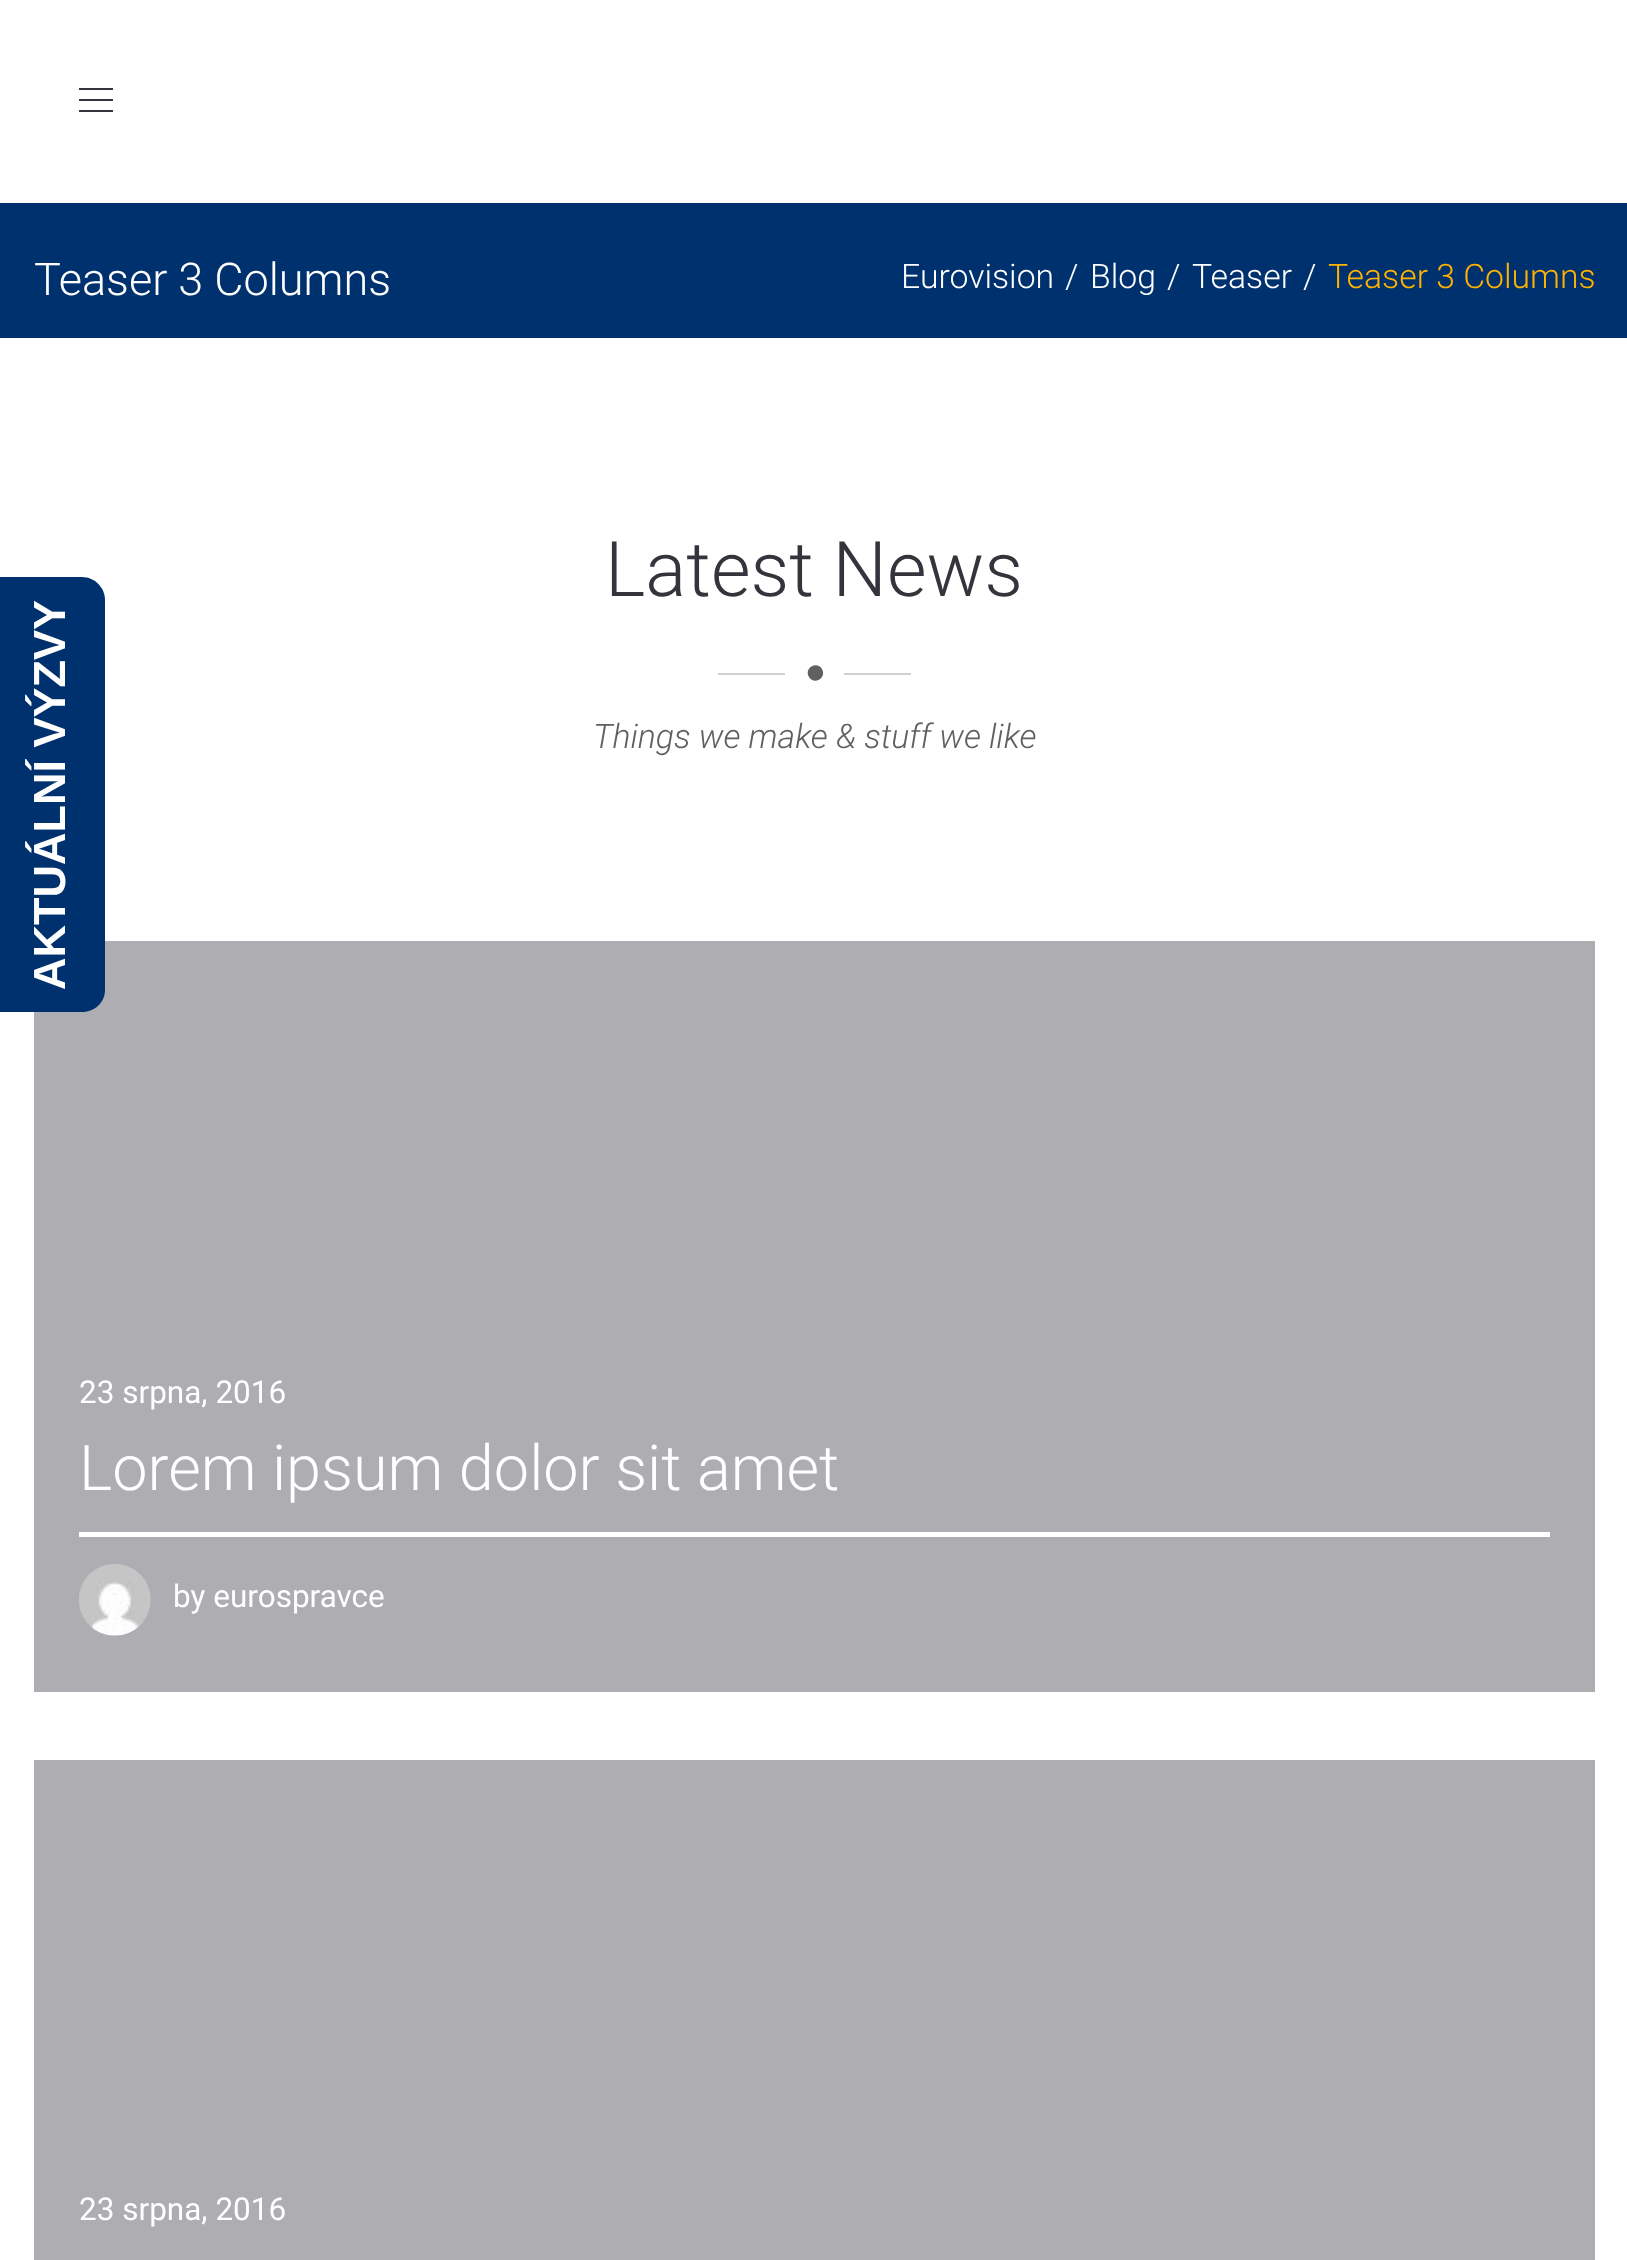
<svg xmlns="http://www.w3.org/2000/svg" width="1627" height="2260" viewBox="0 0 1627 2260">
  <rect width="100%" height="100%" fill="#ffffff"/>
  <rect x="79" y="110" width="34" height="2" fill="#34343c"/>
  <rect x="79" y="88" width="34" height="2" fill="#34343c"/>
  <rect x="79" y="99" width="34" height="2" fill="#34343c"/>
  <rect x="0" y="203" width="1627" height="135" fill="#00316f"/>
  <text x="34" y="295" font-family="Roboto" font-size="45" font-weight="300" fill="#ffffff">Teaser 3 Columns</text>
  <text x="901" y="288" font-family="Roboto" font-size="33.75" font-weight="300" fill="#ffffff">Eurovision</text>
  <text x="1065" y="288" font-family="Roboto" font-size="33.75" font-weight="300" fill="#ffffff">/</text>
  <text x="1090" y="288" font-family="Roboto" font-size="33.75" font-weight="300" fill="#ffffff">Blog</text>
  <text x="1167" y="288" font-family="Roboto" font-size="33.75" font-weight="300" fill="#ffffff">/</text>
  <text x="1192" y="288" font-family="Roboto" font-size="33.75" font-weight="300" fill="#ffffff">Teaser</text>
  <text x="1303" y="288" font-family="Roboto" font-size="33.75" font-weight="300" fill="#ffffff">/</text>
  <text x="1328" y="288" font-family="Roboto" font-size="33.75" font-weight="300" fill="#ffb200">Teaser 3 Columns</text>
  <text x="605" y="596" font-family="Roboto" font-size="76.5" font-weight="300" fill="#34343c">Latest News</text>
  <rect x="718" y="673" width="67" height="2" fill="#d1d1d1"/>
  <path d="M822 669C827 678 814 685.5 809 677C803.5 668 817 660.5 822 669Z" fill="#606060"/>
  <rect x="844" y="673" width="67" height="2" fill="#d1d1d1"/>
  <text x="593" y="748" font-family="Roboto" font-size="33.75" font-weight="300" font-style="italic" fill="#606060">Things we make &amp; stuff we like</text>
  <rect x="34" y="941" width="1561" height="751" fill="#aeaeb2"/>
  <text x="79" y="1403" font-family="Roboto" font-size="31.5" fill="#ffffff">23 srpna, 2016</text>
  <text x="79" y="1490" font-family="Roboto" font-size="63" font-weight="300" fill="#ffffff">Lorem ipsum dolor sit amet</text>
  <rect x="79" y="1532" width="1471" height="5" fill="#ffffff"/>
  <image x="79" y="1564" width="72" height="72" href="img1.png"/>
  <text x="173" y="1607" font-family="Roboto" font-size="31.5" fill="#ffffff">by eurospravce</text>
  <rect x="34" y="1760" width="1561" height="500" fill="#aeaeb2"/>
  <text x="79" y="2220" font-family="Roboto" font-size="31.5" fill="#ffffff">23 srpna, 2016</text>
  <path d="M-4 1012V577H82C95 577 105 588 105 600V990C105 1002 95 1012 82 1012Z" fill="#00316f"/>
  <text x="65" y="990" transform="rotate(-90 65 990)" font-family="Liberation Sans" font-size="45" font-weight="bold" fill="#ffffff">AKTUÁLNÍ VÝZVY</text>
</svg>
